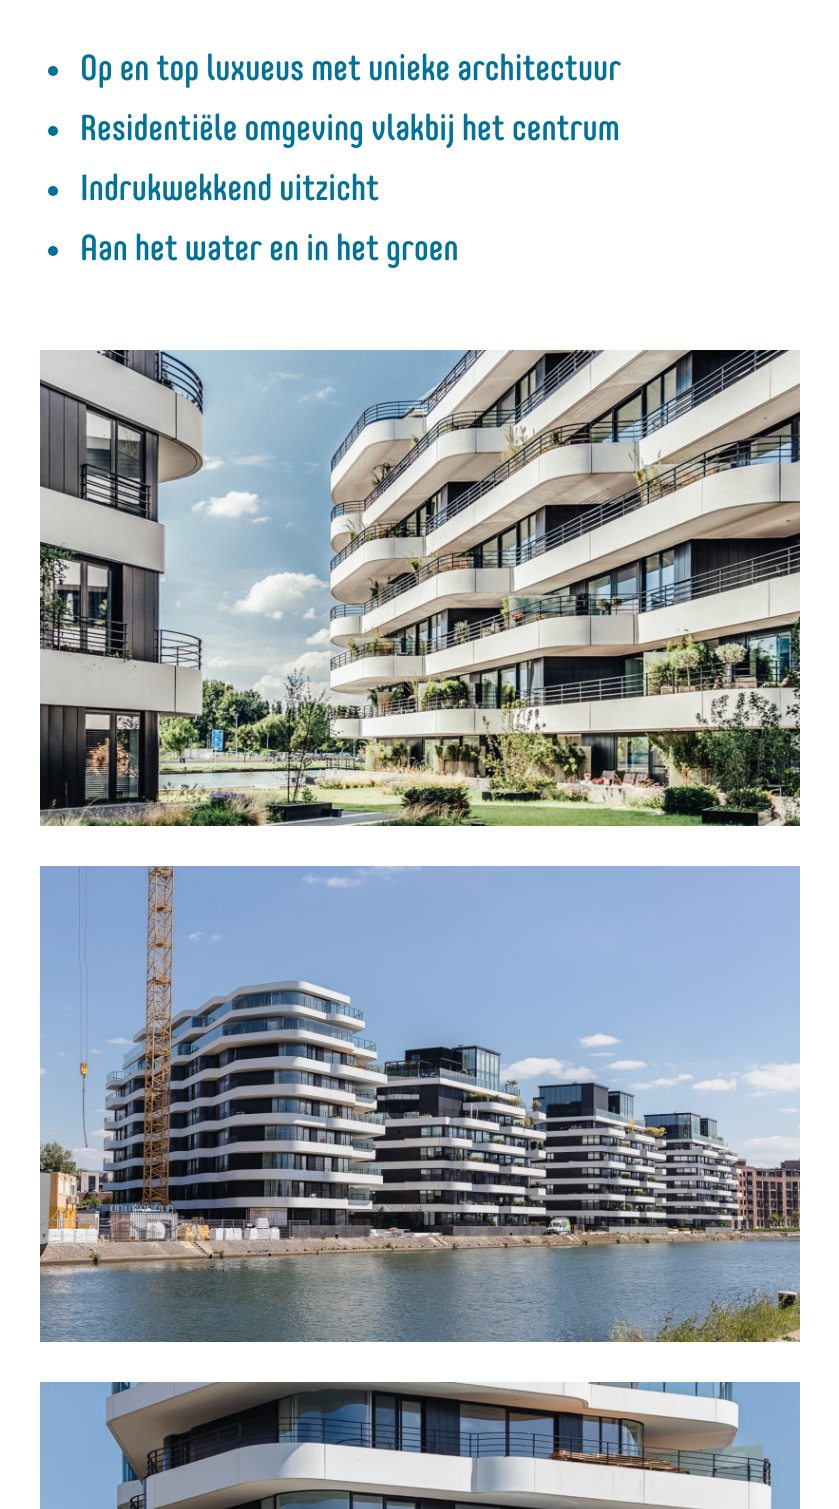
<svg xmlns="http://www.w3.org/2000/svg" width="839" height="1509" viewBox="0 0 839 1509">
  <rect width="100%" height="100%" fill="#ffffff"/>
  <circle cx="53" cy="71" r="5" fill="#017299"/>
  <text x="80" y="80" font-family="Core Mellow" font-size="36" font-weight="500" fill="#017299">Op en top luxueus met unieke architectuur</text>
  <circle cx="53" cy="131" r="5" fill="#017299"/>
  <text x="80" y="140" font-family="Core Mellow" font-size="36" font-weight="500" fill="#017299">Residentiële omgeving vlakbij het centrum</text>
  <circle cx="53" cy="191" r="5" fill="#017299"/>
  <text x="80" y="200" font-family="Core Mellow" font-size="36" font-weight="500" fill="#017299">Indrukwekkend uitzicht</text>
  <circle cx="53" cy="251" r="5" fill="#017299"/>
  <text x="80" y="260" font-family="Core Mellow" font-size="36" font-weight="500" fill="#017299">Aan het water en in het groen</text>
  <image x="40" y="350" width="760" height="476" href="img1.png"/>
  <image x="40" y="866" width="760" height="476" href="img2.png"/>
  <image x="40" y="1382" width="760" height="127" href="img3.png"/>
</svg>
